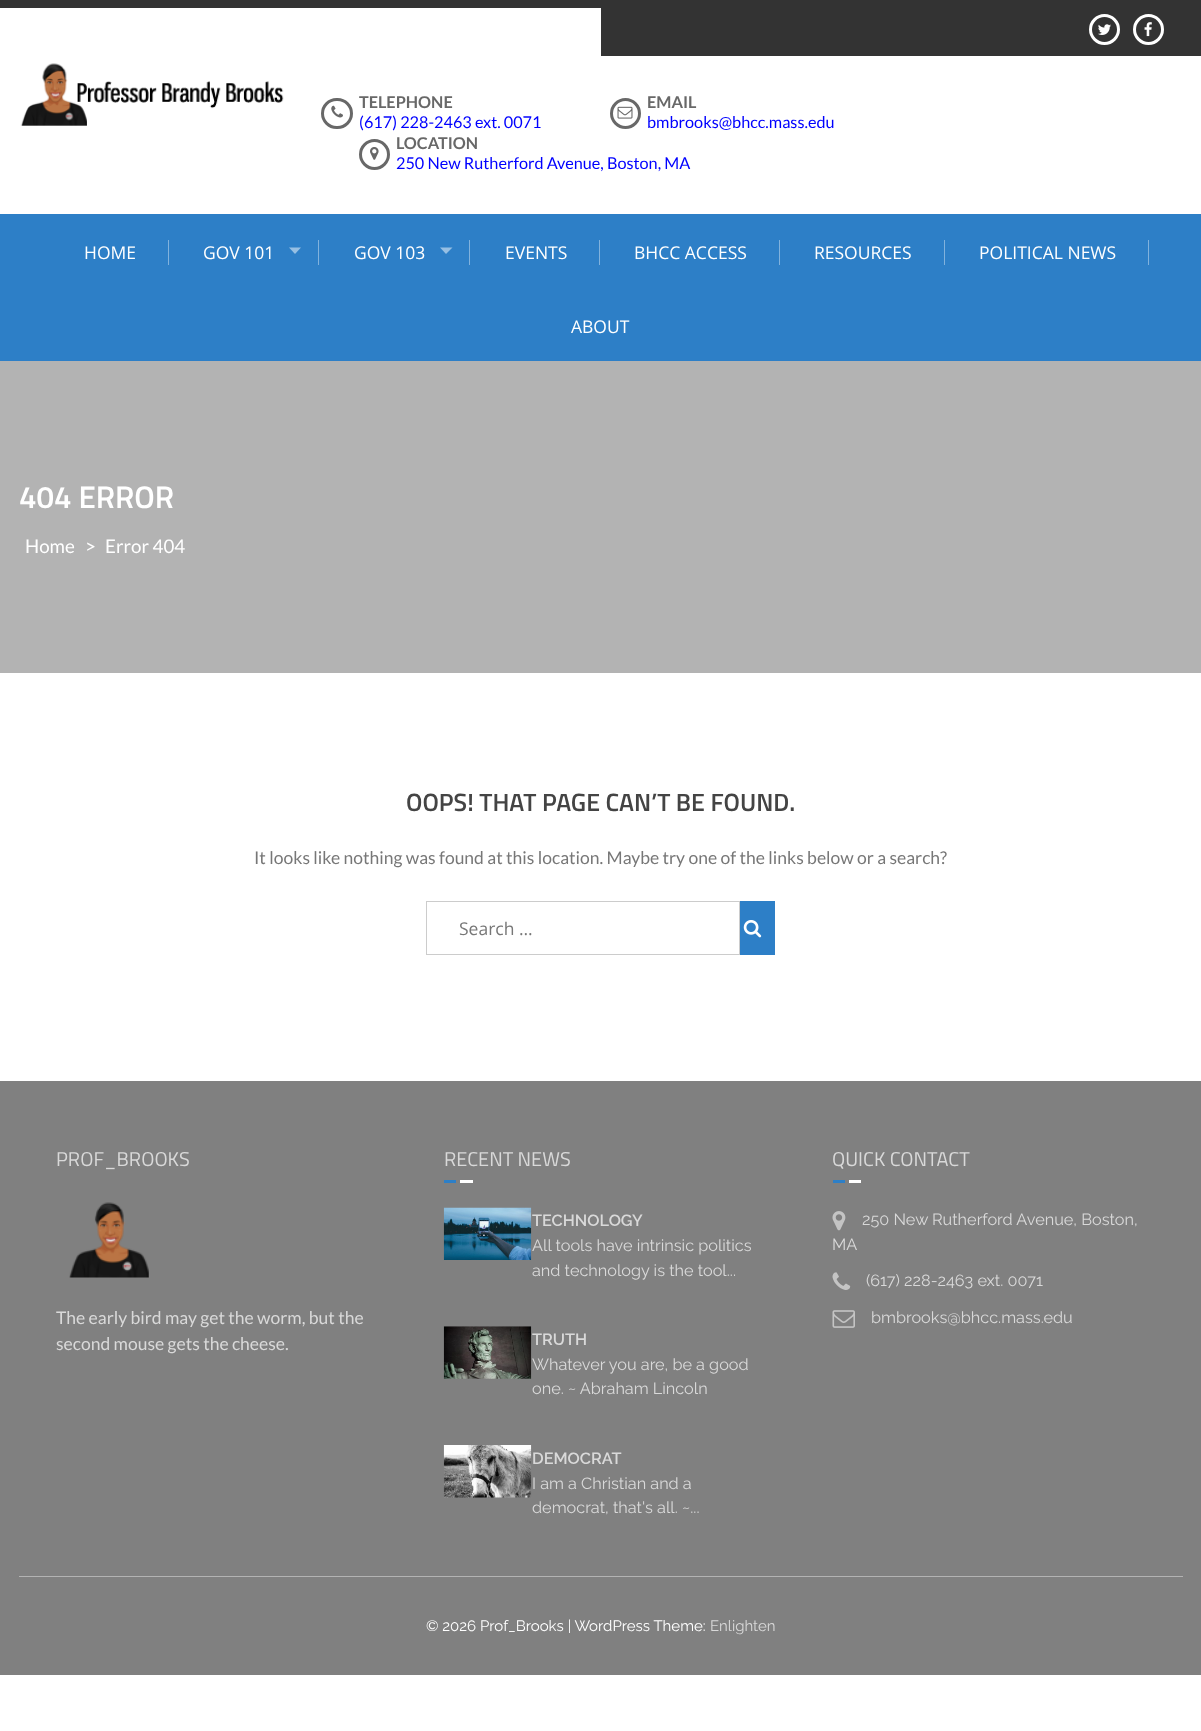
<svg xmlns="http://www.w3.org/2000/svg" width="1201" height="1731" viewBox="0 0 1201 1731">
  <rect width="100%" height="100%" fill="#ffffff"/>
  <rect x="0" y="0" width="1201" height="8" fill="#333333"/>
  <rect x="601" y="8" width="600" height="48" fill="#333333"/>
  <circle cx="1104.5" cy="29.5" r="14" fill="none" stroke="#ffffff" stroke-width="3"/>
  <image x="1098" y="24" width="13" height="11" href="img1.png"/>
  <circle cx="1148.5" cy="29.5" r="14" fill="none" stroke="#ffffff" stroke-width="3"/>
  <image x="1144" y="22" width="8" height="15" href="img2.png"/>
  <image x="20" y="63" width="264" height="63" href="img3.png"/>
  <rect x="322.5" y="99.5" width="29" height="28" rx="14" fill="none" stroke="#686868" stroke-width="3"/>
  <image x="331" y="105" width="12" height="13" href="img4.png"/>
  <text x="359" y="108" font-family="Lato" font-size="16.25" font-weight="bold" fill="#686868">TELEPHONE</text>
  <text x="359" y="128" font-family="Lato" font-size="16.25" fill="#0000ff">(617) 228-2463 ext. 0071</text>
  <circle cx="625.5" cy="113.5" r="14" fill="none" stroke="#686868" stroke-width="3"/>
  <image x="617" y="106" width="16" height="13" href="img5.png"/>
  <text x="647" y="108" font-family="Lato" font-size="16.25" font-weight="bold" fill="#686868">EMAIL</text>
  <text x="647" y="128" font-family="Lato" font-size="16.25" fill="#0000ff">bmbrooks@bhcc.mass.edu</text>
  <circle cx="374.5" cy="154.5" r="14" fill="none" stroke="#686868" stroke-width="3"/>
  <image x="370" y="147" width="9" height="13" href="img6.png"/>
  <text x="396" y="149" font-family="Lato" font-size="16.25" font-weight="bold" fill="#686868">LOCATION</text>
  <text x="396" y="169" font-family="Lato" font-size="16.25" fill="#0000ff">250 New Rutherford Avenue, Boston, MA</text>
  <rect x="0" y="214" width="1201" height="147" fill="#2d7fc7"/>
  <rect x="168" y="240" width="1" height="25" fill="#81b2dd"/>
  <text x="84" y="259" font-family="Open Sans" font-size="17.5" fill="#ffffff">HOME</text>
  <rect x="318" y="240" width="1" height="25" fill="#81b2dd"/>
  <text x="203" y="259" font-family="Open Sans" font-size="17.5" fill="#ffffff">GOV 101</text>
  <path d="M289 247.5H301L295 254Z" fill="#96bfe3"/>
  <rect x="469" y="240" width="1" height="25" fill="#81b2dd"/>
  <text x="354" y="259" font-family="Open Sans" font-size="17.5" fill="#ffffff">GOV 103</text>
  <path d="M440 247.5H452.5L446 254Z" fill="#96bfe3"/>
  <rect x="599" y="240" width="1" height="25" fill="#81b2dd"/>
  <text x="505" y="259" font-family="Open Sans" font-size="17.5" fill="#ffffff">EVENTS</text>
  <rect x="779" y="240" width="1" height="25" fill="#81b2dd"/>
  <text x="634" y="259" font-family="Open Sans" font-size="17.5" fill="#ffffff">BHCC ACCESS</text>
  <rect x="944" y="240" width="1" height="25" fill="#81b2dd"/>
  <text x="814" y="259" font-family="Open Sans" font-size="17.5" fill="#ffffff">RESOURCES</text>
  <rect x="1148" y="240" width="1" height="25" fill="#81b2dd"/>
  <text x="979" y="259" font-family="Open Sans" font-size="17.5" fill="#ffffff">POLITICAL NEWS</text>
  <text x="571" y="333" font-family="Open Sans" font-size="17.5" fill="#ffffff">ABOUT</text>
  <rect x="0" y="361" width="1201" height="312" fill="#b3b3b3"/>
  <text x="19" y="508" font-family="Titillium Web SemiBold" font-size="31.25" font-weight="600" fill="#ffffff">404 ERROR</text>
  <text x="25" y="553" font-family="Lato" font-size="18.75" fill="#ffffff">Home</text>
  <text x="85" y="553" font-family="Lato" font-size="18.75" fill="#ffffff">&gt;</text>
  <text x="105" y="553" font-family="Lato" font-size="18.75" fill="#ffffff">Error 404</text>
  <text x="406" y="811" font-family="Titillium Web SemiBold" font-size="25" font-weight="600" fill="#444444">OOPS! THAT PAGE CAN’T BE FOUND.</text>
  <text x="254" y="864" font-family="Lato" font-size="17.5" fill="#777777">It looks like nothing was found at this location. Maybe try one of the links below or a search?</text>
  <rect x="740" y="901" width="35" height="54" fill="#2d7fc7"/>
  <rect x="426.5" y="901.5" width="313" height="53" fill="none" stroke="#cccccc"/>
  <text x="459" y="935" font-family="Open Sans" font-size="17.5" fill="#777777">Search …</text>
  <image x="743" y="920" width="19" height="18" href="img7.png"/>
  <rect x="0" y="1081" width="1201" height="594" fill="#808080"/>
  <rect x="19" y="1576" width="1164" height="1" fill="#b3b3b3"/>
  <text x="56" y="1166" font-family="Titillium Web" font-size="20" fill="#d9d9d9">PROF_BROOKS</text>
  <image x="69" y="1202" width="80" height="76" href="img8.png"/>
  <text x="56" y="1324" font-family="Lato" font-size="17.5" fill="#d9d9d9">The early bird may get the worm, but the</text>
  <text x="56" y="1350" font-family="Lato" font-size="17.5" fill="#d9d9d9">second mouse gets the cheese.</text>
  <text x="444" y="1166" font-family="Titillium Web" font-size="20" fill="#d9d9d9">RECENT NEWS</text>
  <rect x="444" y="1180" width="12" height="3" fill="#2d7fc7"/>
  <rect x="460" y="1180" width="13" height="3" fill="#ffffff"/>
  <text x="532" y="1226" font-family="Raleway" font-size="16.25" font-weight="600" fill="#d9d9d9">TECHNOLOGY</text>
  <text x="532" y="1251" font-family="Raleway" font-size="16.25" fill="#d9d9d9">All tools have intrinsic politics</text>
  <image x="443" y="1207" width="89" height="53" href="img9.png"/>
  <text x="532" y="1276" font-family="Raleway" font-size="16.25" fill="#d9d9d9">and technology is the tool...</text>
  <text x="532" y="1345" font-family="Raleway" font-size="16.25" font-weight="600" fill="#d9d9d9">TRUTH</text>
  <text x="532" y="1370" font-family="Raleway" font-size="16.25" fill="#d9d9d9">Whatever you are, be a good</text>
  <image x="443" y="1326" width="89" height="53" href="img10.png"/>
  <text x="532" y="1394" font-family="Raleway" font-size="16.25" fill="#d9d9d9">one. ~ Abraham Lincoln</text>
  <image x="443" y="1445" width="89" height="53" href="img11.png"/>
  <text x="532" y="1464" font-family="Raleway" font-size="16.25" font-weight="600" fill="#d9d9d9">DEMOCRAT</text>
  <text x="532" y="1489" font-family="Raleway" font-size="16.25" fill="#d9d9d9">I am a Christian and a</text>
  <text x="532" y="1513" font-family="Raleway" font-size="16.25" fill="#d9d9d9">democrat, that's all. ~...</text>
  <text x="832" y="1166" font-family="Titillium Web" font-size="20" fill="#d9d9d9">QUICK CONTACT</text>
  <rect x="833" y="1180" width="12" height="3" fill="#2d7fc7"/>
  <rect x="849" y="1180" width="12" height="3" fill="#ffffff"/>
  <image x="832" y="1211" width="14" height="20" href="img12.png"/>
  <text x="862" y="1225" font-family="Raleway" font-size="16.25" fill="#d9d9d9">250 New Rutherford Avenue, Boston,</text>
  <text x="832" y="1250" font-family="Raleway" font-size="16.25" fill="#d9d9d9">MA</text>
  <image x="832" y="1272" width="19" height="18" href="img13.png"/>
  <text x="866" y="1286" font-family="Raleway" font-size="16.25" fill="#d9d9d9">(617) 228-2463 ext. 0071</text>
  <image x="832" y="1310" width="23" height="18" href="img14.png"/>
  <text x="871" y="1323" font-family="Raleway" font-size="16.25" fill="#d9d9d9">bmbrooks@bhcc.mass.edu</text>
  <text x="426" y="1631" font-family="Raleway" font-size="15" fill="#ffffff">© 2026 Prof_Brooks | WordPress Theme:</text>
  <text x="710" y="1631" font-family="Raleway" font-size="15" fill="#d9d9d9">Enlighten</text>
</svg>
